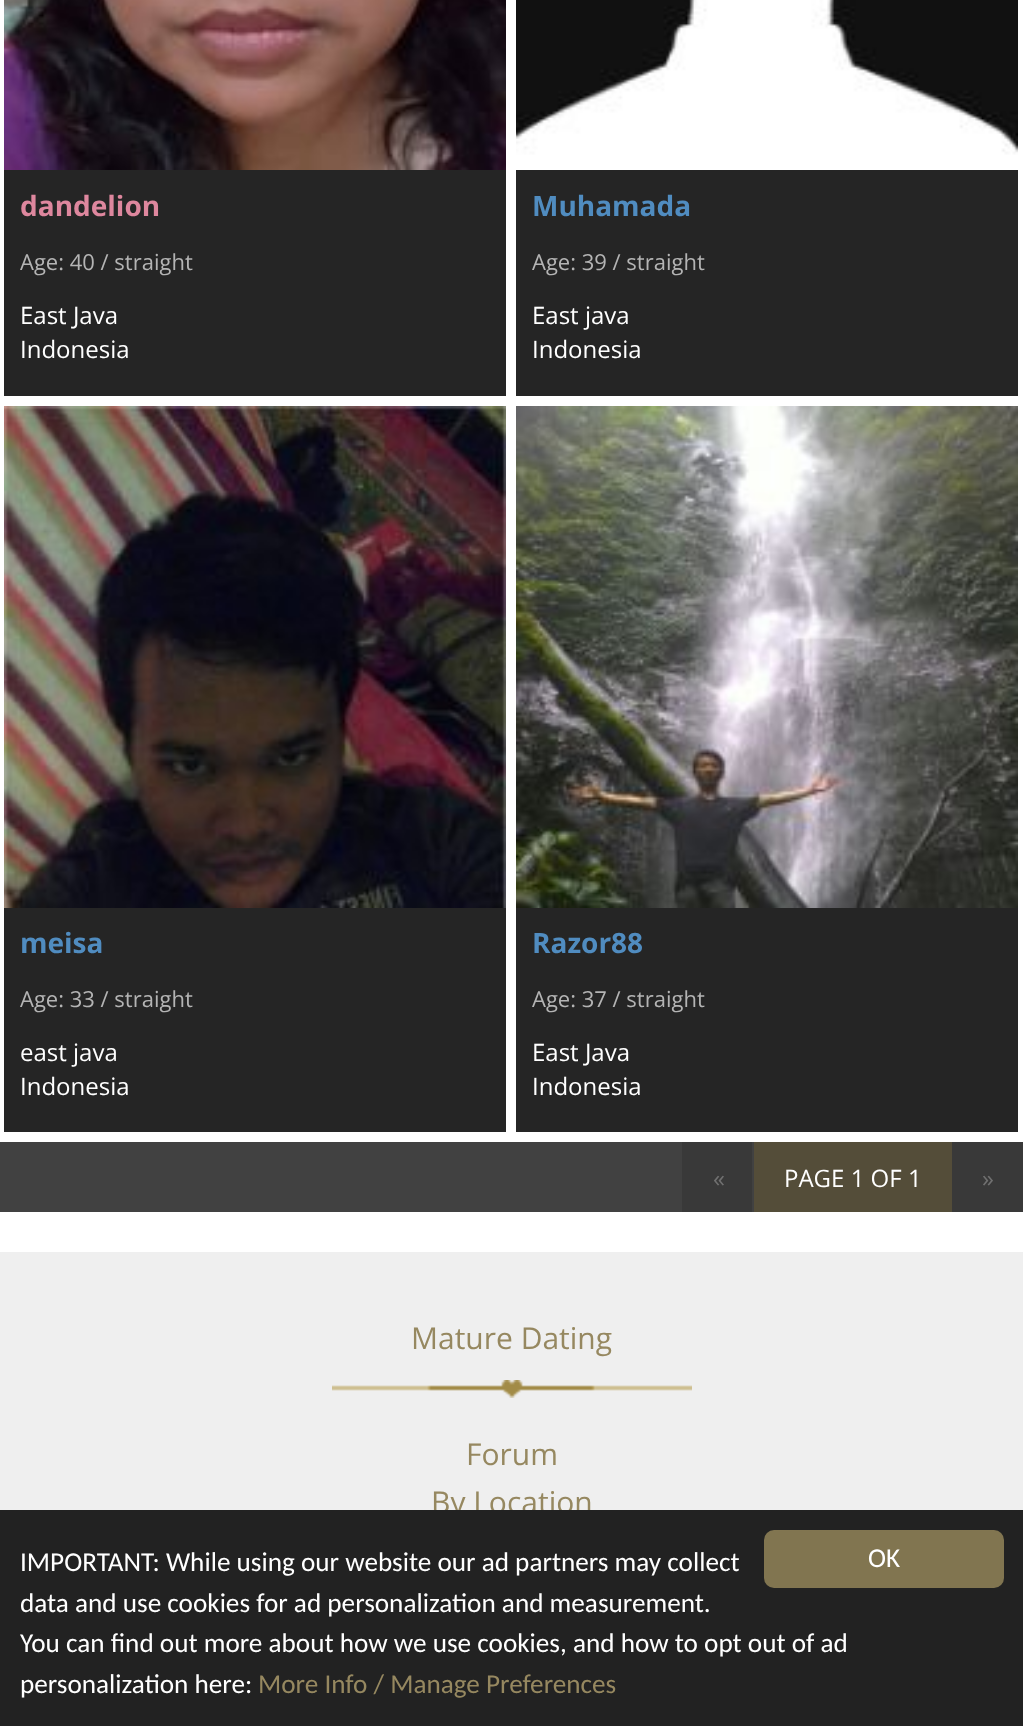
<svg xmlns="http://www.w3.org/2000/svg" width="1023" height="1726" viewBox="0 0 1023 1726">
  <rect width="100%" height="100%" fill="#ffffff"/>
  <rect x="4" y="170" width="502" height="226" fill="#252525"/>
  <image x="4" y="0" width="502" height="170" href="img1.png"/>
  <text x="20" y="216" font-family="Open Sans" font-size="28" font-weight="bold" fill="#de879e">dandelion</text>
  <text x="20" y="270" font-family="Open Sans" font-size="22" fill="#b4b4b4">Age: 40 / straight</text>
  <text x="20" y="324" font-family="Open Sans" font-size="24" fill="#ffffff">East Java</text>
  <text x="20" y="358" font-family="Open Sans" font-size="24" fill="#ffffff">Indonesia</text>
  <rect x="516" y="170" width="502" height="226" fill="#252525"/>
  <image x="516" y="0" width="502" height="170" href="img2.png"/>
  <text x="532" y="216" font-family="Open Sans" font-size="28" font-weight="bold" fill="#508cc0">Muhamada</text>
  <text x="532" y="270" font-family="Open Sans" font-size="22" fill="#b4b4b4">Age: 39 / straight</text>
  <text x="532" y="324" font-family="Open Sans" font-size="24" fill="#ffffff">East java</text>
  <text x="532" y="358" font-family="Open Sans" font-size="24" fill="#ffffff">Indonesia</text>
  <rect x="4" y="908" width="502" height="224" fill="#252525"/>
  <image x="4" y="406" width="502" height="502" href="img3.png"/>
  <text x="20" y="953" font-family="Open Sans" font-size="28" font-weight="bold" fill="#508cc0">meisa</text>
  <text x="20" y="1007" font-family="Open Sans" font-size="22" fill="#b4b4b4">Age: 33 / straight</text>
  <text x="20" y="1061" font-family="Open Sans" font-size="24" fill="#ffffff">east java</text>
  <text x="20" y="1095" font-family="Open Sans" font-size="24" fill="#ffffff">Indonesia</text>
  <rect x="516" y="908" width="502" height="224" fill="#252525"/>
  <image x="516" y="406" width="502" height="502" href="img4.png"/>
  <text x="532" y="953" font-family="Open Sans" font-size="28" font-weight="bold" fill="#508cc0">Razor88</text>
  <text x="532" y="1007" font-family="Open Sans" font-size="22" fill="#b4b4b4">Age: 37 / straight</text>
  <text x="532" y="1061" font-family="Open Sans" font-size="24" fill="#ffffff">East Java</text>
  <text x="532" y="1095" font-family="Open Sans" font-size="24" fill="#ffffff">Indonesia</text>
  <rect x="0" y="1142" width="682" height="70" fill="#414141"/>
  <rect x="682" y="1142" width="70" height="70" fill="#393939"/>
  <text x="713" y="1187" font-family="Open Sans" font-size="24" fill="#707070">«</text>
  <rect x="754" y="1142" width="198" height="70" fill="#544d39"/>
  <rect x="752" y="1142" width="2" height="70" fill="#414141"/>
  <text x="784" y="1187" font-family="Open Sans" font-size="24" fill="#ffffff">PAGE 1 OF 1</text>
  <rect x="952" y="1142" width="71" height="70" fill="#393939"/>
  <text x="982" y="1187" font-family="Open Sans" font-size="24" fill="#707070">»</text>
  <rect x="0" y="1252" width="1023" height="258" fill="#efefef"/>
  <text x="411" y="1349" font-family="Open Sans" font-size="30" fill="#968860">Mature Dating</text>
  <image x="332" y="1380" width="360" height="18" href="img5.png"/>
  <text x="466" y="1465" font-family="Open Sans" font-size="30" fill="#968860">Forum</text>
  <text x="431" y="1513" font-family="Open Sans" font-size="30" fill="#968860">By Location</text>
  <rect x="0" y="1510" width="1023" height="216" fill="#222222"/>
  <text x="20" y="1571" font-family="Carlito" font-size="27.2" fill="#ffffff">IMPORTANT: While using our website our ad partners may collect</text>
  <text x="20" y="1612" font-family="Carlito" font-size="27.2" fill="#ffffff">data and use cookies for ad personalization and measurement.</text>
  <text x="20" y="1652" font-family="Carlito" font-size="27.2" fill="#ffffff">You can find out more about how we use cookies, and how to opt out of ad</text>
  <text x="20" y="1693" font-family="Carlito" font-size="27.2" fill="#ffffff">personalization here:</text>
  <text x="258" y="1693" font-family="Carlito" font-size="27.2" fill="#968860">More Info / Manage Preferences</text>
  <rect x="764" y="1530" width="240" height="58" rx="10" fill="#817550"/>
  <text x="868" y="1567" font-family="Carlito" font-size="27.2" fill="#ffffff">OK</text>
</svg>
